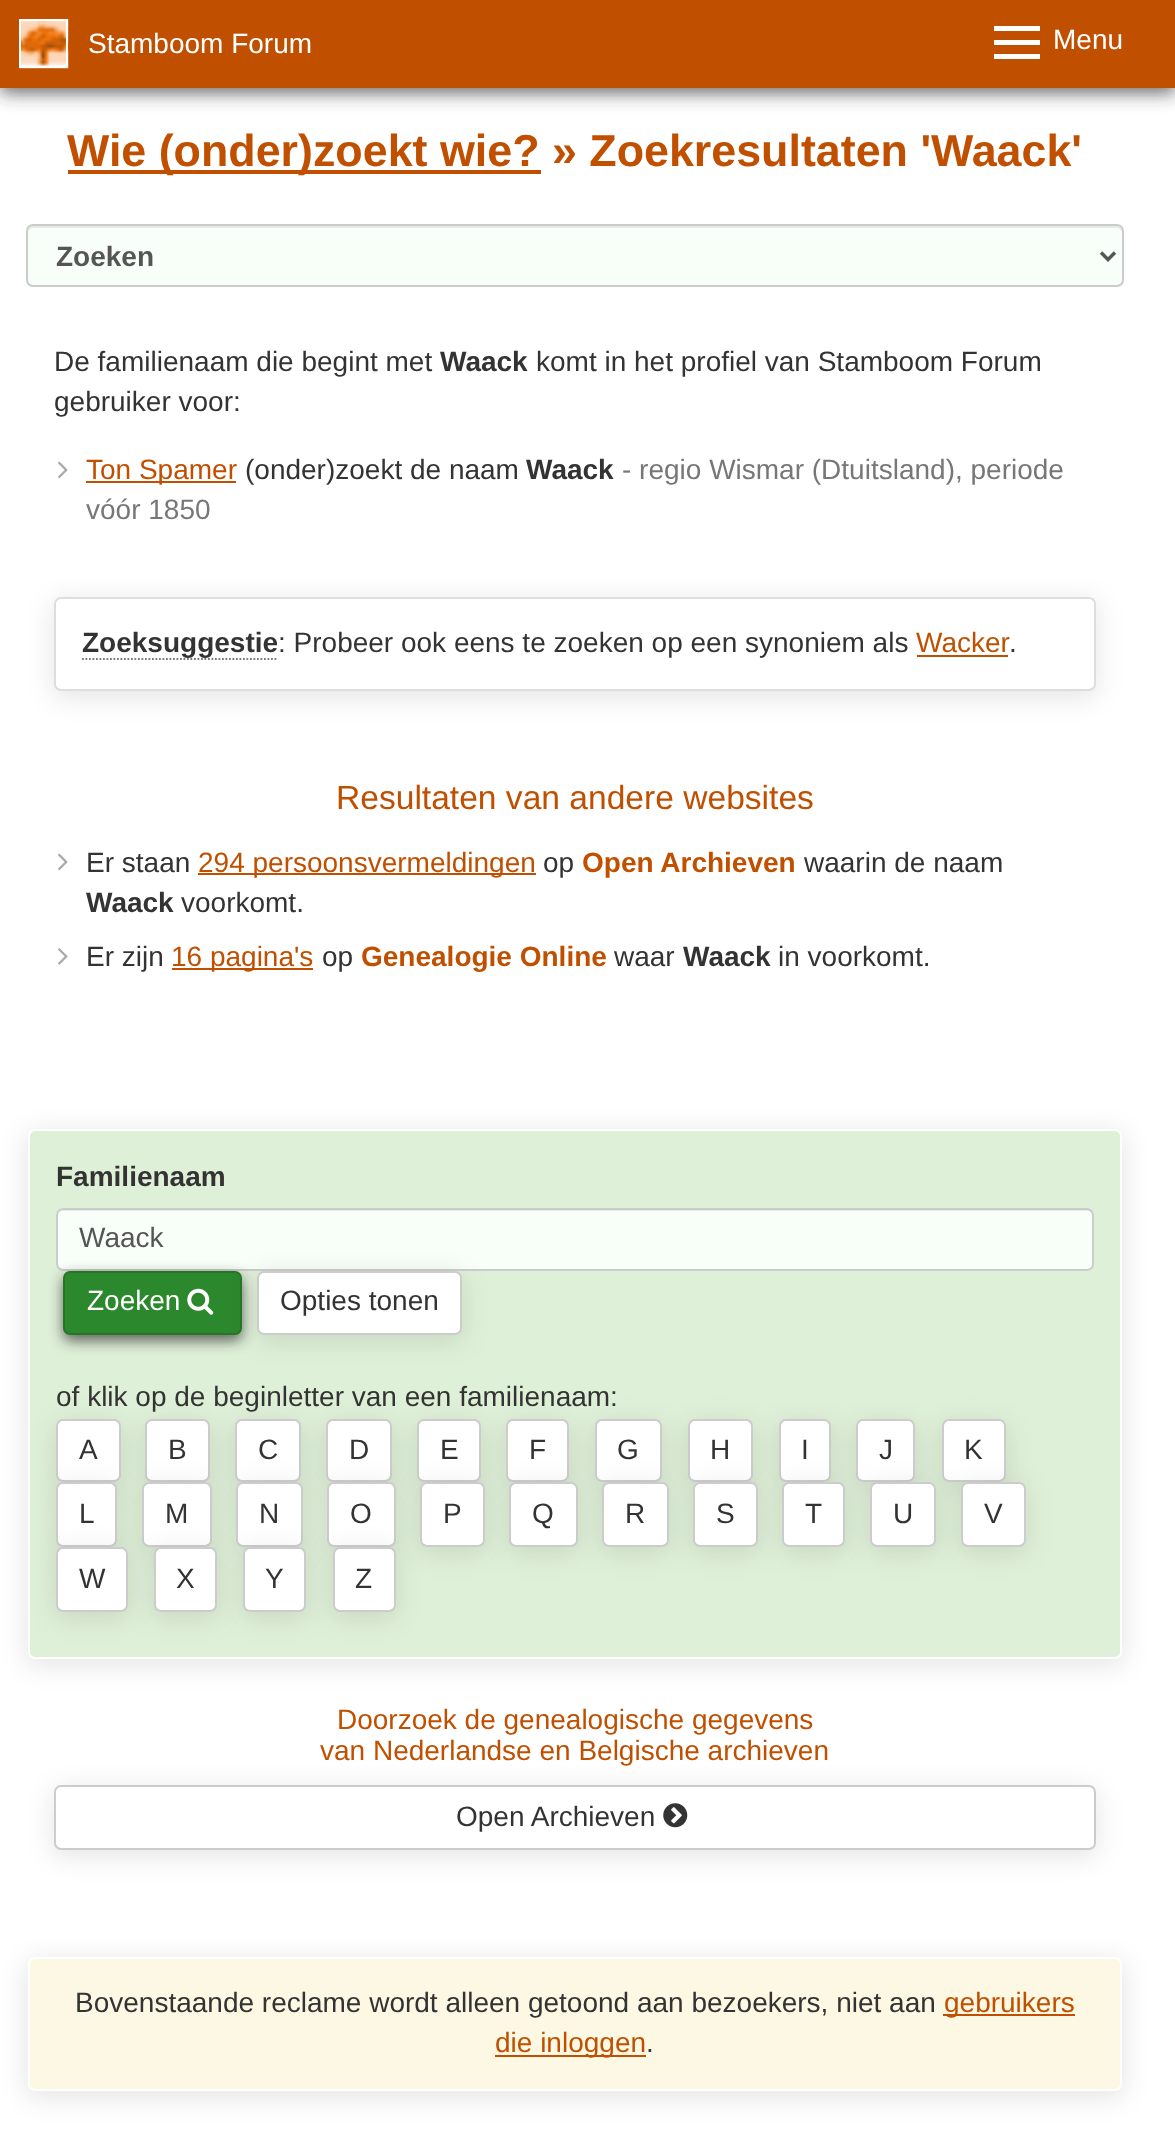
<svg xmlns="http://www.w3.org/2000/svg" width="1175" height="2149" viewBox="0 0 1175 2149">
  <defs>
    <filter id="blur1" x="-50%" y="-200%" width="200%" height="500%"><feGaussianBlur stdDeviation="9"/></filter>
    <filter id="blur2" x="-50%" y="-200%" width="200%" height="500%"><feGaussianBlur stdDeviation="13"/></filter>
    <filter id="blur3" x="-50%" y="-200%" width="200%" height="500%"><feGaussianBlur stdDeviation="7"/></filter>
  </defs>
  <rect width="100%" height="100%" fill="#ffffff"/>
  <rect x="0" y="5" width="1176" height="88" fill="#323232" fill-opacity="0.73" filter="url(#blur1)"/>
  <rect x="0" y="0" width="1175" height="88" fill="#c05000"/>
  <image x="19" y="19" width="50" height="50" href="img1.png"/>
  <rect x="20" y="20" width="47" height="47" fill="none" stroke="#ffffff" stroke-width="2"/>
  <text x="88" y="53" font-family="Liberation Sans" font-size="28" fill="#ffffff">Stamboom Forum</text>
  <rect x="994" y="54" width="46" height="5" fill="#ffffff"/>
  <rect x="994" y="26" width="46" height="5" fill="#ffffff"/>
  <rect x="994" y="40" width="46" height="5" fill="#ffffff"/>
  <text x="1053" y="49" font-family="Liberation Sans" font-size="28" fill="#ffffff">Menu</text>
  <rect x="68" y="170" width="473" height="4" fill="#c05000"/>
  <text x="67" y="166" font-family="Liberation Sans" font-size="44.8" font-weight="bold" fill="#c05000">Wie (onder)zoekt wie? » Zoekresultaten 'Waack'</text>
  <rect x="26" y="224" width="1098" height="63" rx="7" fill="#f8fff8"/>
  <path d="M33 228H1116C1119 228 1122 230 1122 233V231C1122 228 1120 226 1117 226H33C30 226 28 228 28 231V233C28 230 30 228 33 228Z" fill="#e5ece5"/>
  <rect x="27" y="225" width="1096" height="61" rx="6" fill="none" stroke="#cccccc" stroke-width="2"/>
  <path d="M1101 252.5L1108 259.5L1115 252.5" fill="none" stroke="#555555" stroke-width="3.5"/>
  <text x="56" y="266" font-family="Liberation Sans" font-size="28" font-weight="bold" fill="#555555">Zoeken</text>
  <text x="54" y="371" font-family="Liberation Sans" font-size="28" fill="#333333">De familienaam die begint met</text>
  <text x="440" y="371" font-family="Liberation Sans" font-size="28" font-weight="bold" fill="#333333">Waack</text>
  <text x="536" y="371" font-family="Liberation Sans" font-size="28" fill="#333333">komt in het profiel van Stamboom Forum</text>
  <text x="54" y="411" font-family="Liberation Sans" font-size="28" fill="#333333">gebruiker voor:</text>
  <image x="58" y="461" width="10" height="18" href="img2.png"/>
  <rect x="86" y="481" width="150" height="2" fill="#c05000"/>
  <text x="86" y="479" font-family="Liberation Sans" font-size="28" fill="#c05000">Ton Spamer</text>
  <text x="245" y="479" font-family="Liberation Sans" font-size="28" fill="#333333">(onder)zoekt de naam</text>
  <text x="526" y="479" font-family="Liberation Sans" font-size="28" font-weight="bold" fill="#333333">Waack</text>
  <text x="622" y="479" font-family="Liberation Sans" font-size="28" fill="#777777">- regio Wismar (Dtuitsland), periode</text>
  <text x="86" y="519" font-family="Liberation Sans" font-size="28" fill="#777777">vóór 1850</text>
  <rect x="53" y="600" width="1044" height="98" rx="9" fill="#000000" fill-opacity="0.1" filter="url(#blur2)"/>
  <rect x="55" y="598" width="1040" height="92" rx="6" fill="#ffffff" stroke="#dddddd" stroke-width="2"/>
  <text x="82" y="652" font-family="Liberation Sans" font-size="28" font-weight="bold" fill="#333333">Zoeksuggestie</text>
  <path d="M82 659H278" fill="none" stroke="#777777" stroke-width="1.8" stroke-dasharray="1.75 1.75"/>
  <text x="278" y="652" font-family="Liberation Sans" font-size="28" fill="#333333">: Probeer ook eens te zoeken op een synoniem als</text>
  <text x="916" y="652" font-family="Liberation Sans" font-size="28" fill="#c05000">Wacker</text>
  <rect x="917" y="655" width="91" height="2" fill="#c05000"/>
  <text x="1009" y="652" font-family="Liberation Sans" font-size="28" fill="#333333">.</text>
  <text x="336" y="809" font-family="Liberation Sans" font-size="33.6" fill="#c05000">Resultaten van andere websites</text>
  <image x="58" y="853" width="10" height="18" href="img2.png"/>
  <text x="86" y="872" font-family="Liberation Sans" font-size="28" fill="#333333">Er staan</text>
  <rect x="198" y="873" width="338" height="2" fill="#c05000"/>
  <text x="198" y="872" font-family="Liberation Sans" font-size="28" fill="#c05000">294 persoonsvermeldingen</text>
  <text x="543" y="872" font-family="Liberation Sans" font-size="28" fill="#333333">op</text>
  <text x="582" y="872" font-family="Liberation Sans" font-size="28" font-weight="bold" fill="#c05000">Open Archieven</text>
  <text x="804" y="872" font-family="Liberation Sans" font-size="28" fill="#333333">waarin de naam</text>
  <text x="86" y="912" font-family="Liberation Sans" font-size="28" font-weight="bold" fill="#333333">Waack</text>
  <text x="181" y="912" font-family="Liberation Sans" font-size="28" fill="#333333">voorkomt.</text>
  <image x="58" y="948" width="10" height="17" href="img3.png"/>
  <text x="86" y="966" font-family="Liberation Sans" font-size="28" fill="#333333">Er zijn</text>
  <rect x="172" y="968" width="141" height="2" fill="#c05000"/>
  <text x="171" y="966" font-family="Liberation Sans" font-size="28" fill="#c05000">16 pagina's</text>
  <text x="322" y="966" font-family="Liberation Sans" font-size="28" fill="#333333">op</text>
  <text x="361" y="966" font-family="Liberation Sans" font-size="28" font-weight="bold" fill="#c05000">Genealogie Online</text>
  <text x="614" y="966" font-family="Liberation Sans" font-size="28" fill="#333333">waar</text>
  <text x="683" y="966" font-family="Liberation Sans" font-size="28" font-weight="bold" fill="#333333">Waack</text>
  <text x="778" y="966" font-family="Liberation Sans" font-size="28" fill="#333333">in voorkomt.</text>
  <rect x="26" y="1132" width="1098" height="534" rx="9" fill="#000000" fill-opacity="0.1" filter="url(#blur2)"/>
  <rect x="29" y="1130" width="1092" height="528" rx="6" fill="#dff0d8" stroke="#ffffff" stroke-width="2"/>
  <text x="56" y="1186" font-family="Liberation Sans" font-size="28" font-weight="bold" fill="#333333">Familienaam</text>
  <rect x="56" y="1208" width="1038" height="63" rx="7" fill="#f8fff8"/>
  <path d="M63 1211H1087C1090 1211 1092 1213 1092 1216V1214C1092 1211 1090 1209 1087 1209H63C60 1209 58 1211 58 1214V1216C58 1213 60 1211 63 1211Z" fill="#e5ece5"/>
  <rect x="57" y="1209" width="1036" height="61" rx="6" fill="none" stroke="#cccccc" stroke-width="2"/>
  <text x="79" y="1247" font-family="Liberation Sans" font-size="28" fill="#555555">Waack</text>
  <rect x="63" y="1276" width="179" height="65" rx="7" fill="#323232" fill-opacity="0.73" filter="url(#blur3)"/>
  <rect x="64" y="1272" width="177" height="62" rx="6" fill="#2c882c" stroke="#267526" stroke-width="2"/>
  <text x="87" y="1310" font-family="Liberation Sans" font-size="28" fill="#ffffff">Zoeken</text>
  <image x="187" y="1288" width="27" height="27" href="img4.png"/>
  <rect x="256" y="1274" width="208" height="68" rx="9" fill="#000000" fill-opacity="0.1" filter="url(#blur2)"/>
  <rect x="258" y="1272" width="203" height="62" rx="6" fill="#ffffff" stroke="#cccccc" stroke-width="2"/>
  <text x="280" y="1310" font-family="Liberation Sans" font-size="28" fill="#333333">Opties tonen</text>
  <text x="56" y="1406" font-family="Liberation Sans" font-size="28" fill="#333333">of klik op de beginletter van een familienaam:</text>
  <rect x="54" y="1423" width="69" height="66" rx="9" fill="#000000" fill-opacity="0.1" filter="url(#blur2)"/>
  <rect x="57" y="1420" width="63" height="61" rx="6" fill="#ffffff" stroke="#cccccc" stroke-width="2"/>
  <text x="79" y="1459" font-family="Liberation Sans" font-size="28" fill="#333333">A</text>
  <rect x="144" y="1423" width="68" height="66" rx="9" fill="#000000" fill-opacity="0.1" filter="url(#blur2)"/>
  <rect x="146" y="1420" width="63" height="61" rx="6" fill="#ffffff" stroke="#cccccc" stroke-width="2"/>
  <text x="168" y="1459" font-family="Liberation Sans" font-size="28" fill="#333333">B</text>
  <rect x="233" y="1423" width="70" height="66" rx="9" fill="#000000" fill-opacity="0.1" filter="url(#blur2)"/>
  <rect x="236" y="1420" width="64" height="61" rx="6" fill="#ffffff" stroke="#cccccc" stroke-width="2"/>
  <text x="258" y="1459" font-family="Liberation Sans" font-size="28" fill="#333333">C</text>
  <rect x="324" y="1423" width="70" height="66" rx="9" fill="#000000" fill-opacity="0.1" filter="url(#blur2)"/>
  <rect x="327" y="1420" width="64" height="61" rx="6" fill="#ffffff" stroke="#cccccc" stroke-width="2"/>
  <text x="349" y="1459" font-family="Liberation Sans" font-size="28" fill="#333333">D</text>
  <rect x="415" y="1423" width="68" height="66" rx="9" fill="#000000" fill-opacity="0.1" filter="url(#blur2)"/>
  <rect x="418" y="1420" width="62" height="61" rx="6" fill="#ffffff" stroke="#cccccc" stroke-width="2"/>
  <text x="440" y="1459" font-family="Liberation Sans" font-size="28" fill="#333333">E</text>
  <rect x="504" y="1423" width="67" height="66" rx="9" fill="#000000" fill-opacity="0.1" filter="url(#blur2)"/>
  <rect x="507" y="1420" width="61" height="61" rx="6" fill="#ffffff" stroke="#cccccc" stroke-width="2"/>
  <text x="529" y="1459" font-family="Liberation Sans" font-size="28" fill="#333333">F</text>
  <rect x="593" y="1423" width="70" height="66" rx="9" fill="#000000" fill-opacity="0.1" filter="url(#blur2)"/>
  <rect x="596" y="1420" width="65" height="61" rx="6" fill="#ffffff" stroke="#cccccc" stroke-width="2"/>
  <text x="617" y="1459" font-family="Liberation Sans" font-size="28" fill="#333333">G</text>
  <rect x="686" y="1423" width="68" height="66" rx="9" fill="#000000" fill-opacity="0.1" filter="url(#blur2)"/>
  <rect x="689" y="1420" width="63" height="61" rx="6" fill="#ffffff" stroke="#cccccc" stroke-width="2"/>
  <text x="710" y="1459" font-family="Liberation Sans" font-size="28" fill="#333333">H</text>
  <rect x="777" y="1423" width="56" height="66" rx="9" fill="#000000" fill-opacity="0.1" filter="url(#blur2)"/>
  <rect x="780" y="1420" width="50" height="61" rx="6" fill="#ffffff" stroke="#cccccc" stroke-width="2"/>
  <text x="801" y="1459" font-family="Liberation Sans" font-size="28" fill="#333333">I</text>
  <rect x="854" y="1423" width="63" height="66" rx="9" fill="#000000" fill-opacity="0.1" filter="url(#blur2)"/>
  <rect x="857" y="1420" width="57" height="61" rx="6" fill="#ffffff" stroke="#cccccc" stroke-width="2"/>
  <text x="879" y="1459" font-family="Liberation Sans" font-size="28" fill="#333333">J</text>
  <rect x="940" y="1423" width="68" height="66" rx="9" fill="#000000" fill-opacity="0.1" filter="url(#blur2)"/>
  <rect x="943" y="1420" width="62" height="61" rx="6" fill="#ffffff" stroke="#cccccc" stroke-width="2"/>
  <text x="964" y="1459" font-family="Liberation Sans" font-size="28" fill="#333333">K</text>
  <rect x="54" y="1486" width="65" height="68" rx="9" fill="#000000" fill-opacity="0.1" filter="url(#blur2)"/>
  <rect x="57" y="1483" width="59" height="63" rx="6" fill="#ffffff" stroke="#cccccc" stroke-width="2"/>
  <text x="79" y="1523" font-family="Liberation Sans" font-size="28" fill="#333333">L</text>
  <rect x="140" y="1486" width="74" height="68" rx="9" fill="#000000" fill-opacity="0.1" filter="url(#blur2)"/>
  <rect x="143" y="1483" width="68" height="63" rx="6" fill="#ffffff" stroke="#cccccc" stroke-width="2"/>
  <text x="165" y="1523" font-family="Liberation Sans" font-size="28" fill="#333333">M</text>
  <rect x="235" y="1486" width="70" height="68" rx="9" fill="#000000" fill-opacity="0.1" filter="url(#blur2)"/>
  <rect x="237" y="1483" width="65" height="63" rx="6" fill="#ffffff" stroke="#cccccc" stroke-width="2"/>
  <text x="259" y="1523" font-family="Liberation Sans" font-size="28" fill="#333333">N</text>
  <rect x="326" y="1486" width="71" height="68" rx="9" fill="#000000" fill-opacity="0.1" filter="url(#blur2)"/>
  <rect x="328" y="1483" width="67" height="63" rx="6" fill="#ffffff" stroke="#cccccc" stroke-width="2"/>
  <text x="350" y="1523" font-family="Liberation Sans" font-size="28" fill="#333333">O</text>
  <rect x="418" y="1486" width="69" height="68" rx="9" fill="#000000" fill-opacity="0.1" filter="url(#blur2)"/>
  <rect x="421" y="1483" width="63" height="63" rx="6" fill="#ffffff" stroke="#cccccc" stroke-width="2"/>
  <text x="443" y="1523" font-family="Liberation Sans" font-size="28" fill="#333333">P</text>
  <rect x="508" y="1486" width="71" height="68" rx="9" fill="#000000" fill-opacity="0.1" filter="url(#blur2)"/>
  <rect x="510" y="1483" width="67" height="63" rx="6" fill="#ffffff" stroke="#cccccc" stroke-width="2"/>
  <text x="532" y="1523" font-family="Liberation Sans" font-size="28" fill="#333333">Q</text>
  <rect x="600" y="1486" width="70" height="68" rx="9" fill="#000000" fill-opacity="0.1" filter="url(#blur2)"/>
  <rect x="603" y="1483" width="65" height="63" rx="6" fill="#ffffff" stroke="#cccccc" stroke-width="2"/>
  <text x="625" y="1523" font-family="Liberation Sans" font-size="28" fill="#333333">R</text>
  <rect x="691" y="1486" width="69" height="68" rx="9" fill="#000000" fill-opacity="0.1" filter="url(#blur2)"/>
  <rect x="694" y="1483" width="63" height="63" rx="6" fill="#ffffff" stroke="#cccccc" stroke-width="2"/>
  <text x="716" y="1523" font-family="Liberation Sans" font-size="28" fill="#333333">S</text>
  <rect x="781" y="1486" width="66" height="68" rx="9" fill="#000000" fill-opacity="0.1" filter="url(#blur2)"/>
  <rect x="783" y="1483" width="61" height="63" rx="6" fill="#ffffff" stroke="#cccccc" stroke-width="2"/>
  <text x="805" y="1523" font-family="Liberation Sans" font-size="28" fill="#333333">T</text>
  <rect x="868" y="1486" width="70" height="68" rx="9" fill="#000000" fill-opacity="0.1" filter="url(#blur2)"/>
  <rect x="871" y="1483" width="64" height="63" rx="6" fill="#ffffff" stroke="#cccccc" stroke-width="2"/>
  <text x="893" y="1523" font-family="Liberation Sans" font-size="28" fill="#333333">U</text>
  <rect x="959" y="1486" width="68" height="68" rx="9" fill="#000000" fill-opacity="0.1" filter="url(#blur2)"/>
  <rect x="962" y="1483" width="63" height="63" rx="6" fill="#ffffff" stroke="#cccccc" stroke-width="2"/>
  <text x="984" y="1523" font-family="Liberation Sans" font-size="28" fill="#333333">V</text>
  <rect x="54" y="1551" width="76" height="68" rx="9" fill="#000000" fill-opacity="0.1" filter="url(#blur2)"/>
  <rect x="57" y="1548" width="70" height="63" rx="6" fill="#ffffff" stroke="#cccccc" stroke-width="2"/>
  <text x="79" y="1588" font-family="Liberation Sans" font-size="28" fill="#333333">W</text>
  <rect x="152" y="1551" width="67" height="68" rx="9" fill="#000000" fill-opacity="0.1" filter="url(#blur2)"/>
  <rect x="155" y="1548" width="61" height="63" rx="6" fill="#ffffff" stroke="#cccccc" stroke-width="2"/>
  <text x="176" y="1588" font-family="Liberation Sans" font-size="28" fill="#333333">X</text>
  <rect x="242" y="1551" width="66" height="68" rx="9" fill="#000000" fill-opacity="0.1" filter="url(#blur2)"/>
  <rect x="244" y="1548" width="61" height="63" rx="6" fill="#ffffff" stroke="#cccccc" stroke-width="2"/>
  <text x="265" y="1588" font-family="Liberation Sans" font-size="28" fill="#333333">Y</text>
  <rect x="331" y="1551" width="66" height="68" rx="9" fill="#000000" fill-opacity="0.1" filter="url(#blur2)"/>
  <rect x="334" y="1548" width="61" height="63" rx="6" fill="#ffffff" stroke="#cccccc" stroke-width="2"/>
  <text x="355" y="1588" font-family="Liberation Sans" font-size="28" fill="#333333">Z</text>
  <text x="337" y="1729" font-family="Liberation Sans" font-size="28" fill="#c05000">Doorzoek de genealogische gegevens</text>
  <rect x="53" y="1789" width="1044" height="68" rx="9" fill="#000000" fill-opacity="0.1" filter="url(#blur2)"/>
  <text x="320" y="1760" font-family="Liberation Sans" font-size="28" fill="#c05000">van Nederlandse en Belgische archieven</text>
  <rect x="55" y="1786" width="1040" height="63" rx="6" fill="#ffffff" stroke="#cccccc" stroke-width="2"/>
  <text x="456" y="1826" font-family="Liberation Sans" font-size="28" fill="#333333">Open Archieven</text>
  <image x="663" y="1803" width="25" height="25" href="img5.png"/>
  <rect x="26" y="1960" width="1098" height="138" rx="9" fill="#000000" fill-opacity="0.1" filter="url(#blur2)"/>
  <rect x="29" y="1958" width="1092" height="132" rx="6" fill="#fcf8e3" stroke="#ffffff" stroke-width="2"/>
  <text x="75" y="2012" font-family="Liberation Sans" font-size="28" fill="#333333">Bovenstaande reclame wordt alleen getoond aan bezoekers, niet aan</text>
  <rect x="943" y="2014" width="132" height="2" fill="#c05000"/>
  <text x="944" y="2012" font-family="Liberation Sans" font-size="28" fill="#c05000">gebruikers</text>
  <rect x="495" y="2055" width="151" height="2" fill="#c05000"/>
  <text x="495" y="2052" font-family="Liberation Sans" font-size="28" fill="#c05000">die inloggen</text>
  <text x="646" y="2052" font-family="Liberation Sans" font-size="28" fill="#333333">.</text>
</svg>
